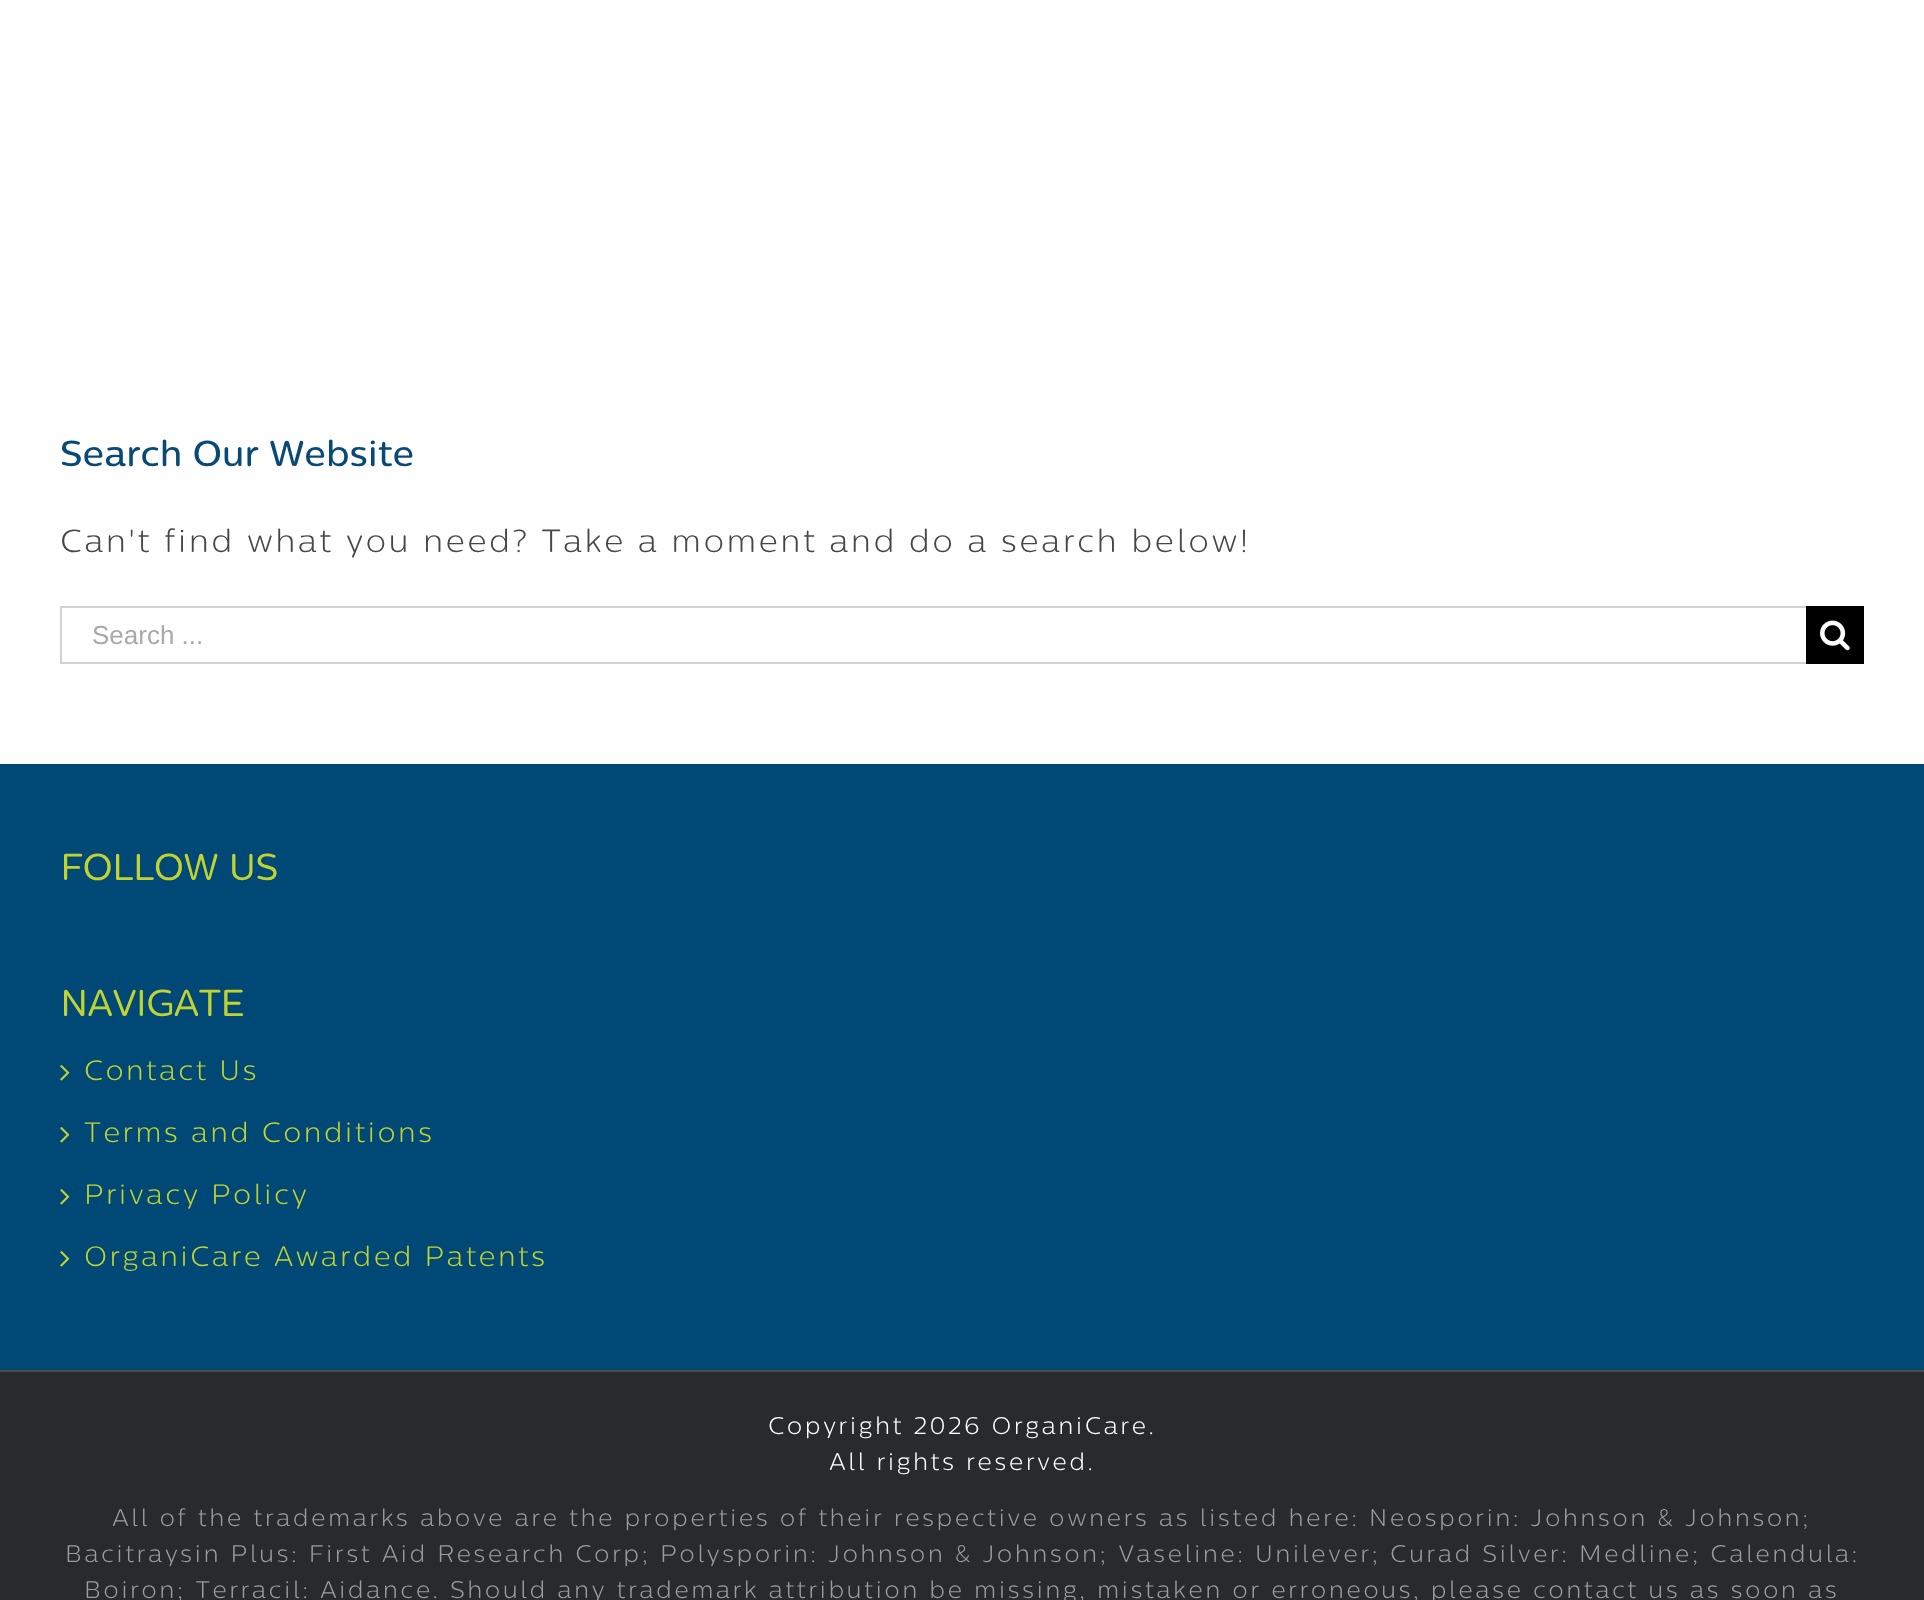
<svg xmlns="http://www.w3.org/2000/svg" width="1924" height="1600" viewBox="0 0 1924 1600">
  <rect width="100%" height="100%" fill="#ffffff"/>
  <text x="60" y="466" font-family="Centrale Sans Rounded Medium" font-size="36" fill="#084975">Search Our Website</text>
  <text x="60" y="552" font-family="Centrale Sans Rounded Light" font-size="32" letter-spacing="2.4" fill="#474747">Can't find what you need? Take a moment and do a search below!</text>
  <rect x="60" y="606" width="1746" height="2" fill="#d2d2d2"/>
  <rect x="60" y="662" width="1746" height="2" fill="#d2d2d2"/>
  <rect x="60" y="606" width="2" height="58" fill="#d2d2d2"/>
  <text x="92" y="644" font-family="Liberation Sans" font-size="26" fill="#aaa9a9">Search ...</text>
  <rect x="1806" y="606" width="58" height="58" fill="#000000"/>
  <image x="1820" y="620" width="30" height="31" href="img1.png"/>
  <rect x="0" y="764" width="1924" height="606" fill="#004876"/>
  <text x="60" y="880" font-family="Centrale Sans Rounded Light" font-size="36" font-weight="bold" fill="#c0d330">FOLLOW US</text>
  <text x="60" y="1016" font-family="Centrale Sans Rounded Light" font-size="36" font-weight="bold" fill="#c0d330">NAVIGATE</text>
  <image x="60" y="1065" width="10" height="16" href="img2.png"/>
  <text x="84" y="1080" font-family="Centrale Sans Rounded Light" font-size="28" letter-spacing="2.4" fill="#c0d330">Contact Us</text>
  <image x="60" y="1127" width="10" height="16" href="img2.png"/>
  <text x="84" y="1142" font-family="Centrale Sans Rounded Light" font-size="28" letter-spacing="2.4" fill="#c0d330">Terms and Conditions</text>
  <image x="60" y="1189" width="10" height="16" href="img2.png"/>
  <text x="84" y="1204" font-family="Centrale Sans Rounded Light" font-size="28" letter-spacing="2.4" fill="#c0d330">Privacy Policy</text>
  <image x="60" y="1251" width="10" height="16" href="img2.png"/>
  <text x="84" y="1266" font-family="Centrale Sans Rounded Light" font-size="28" letter-spacing="2.4" fill="#c0d330">OrganiCare Awarded Patents</text>
  <rect x="0" y="1372" width="1924" height="228" fill="#282a2b"/>
  <rect x="0" y="1370" width="1924" height="2" fill="#4b4c4d"/>
  <text x="768" y="1434" font-family="Centrale Sans Rounded Light" font-size="24" letter-spacing="2.4" fill="#ffffff">Copyright 2026 OrganiCare.</text>
  <text x="829" y="1470" font-family="Centrale Sans Rounded Light" font-size="24" letter-spacing="2.4" fill="#ffffff">All rights reserved.</text>
  <text x="112" y="1526" font-family="Centrale Sans Rounded Light" font-size="24" letter-spacing="2.4" fill="#9c9c9c">All of the trademarks above are the properties of their respective owners as listed here: Neosporin: Johnson &amp; Johnson;</text>
  <text x="65" y="1562" font-family="Centrale Sans Rounded Light" font-size="24" letter-spacing="2.4" fill="#9c9c9c">Bacitraysin Plus: First Aid Research Corp; Polysporin: Johnson &amp; Johnson; Vaseline: Unilever; Curad Silver: Medline; Calendula:</text>
  <text x="84" y="1598" font-family="Centrale Sans Rounded Light" font-size="24" letter-spacing="2.4" fill="#9c9c9c">Boiron; Terracil: Aidance. Should any trademark attribution be missing, mistaken or erroneous, please contact us as soon as</text>
</svg>
